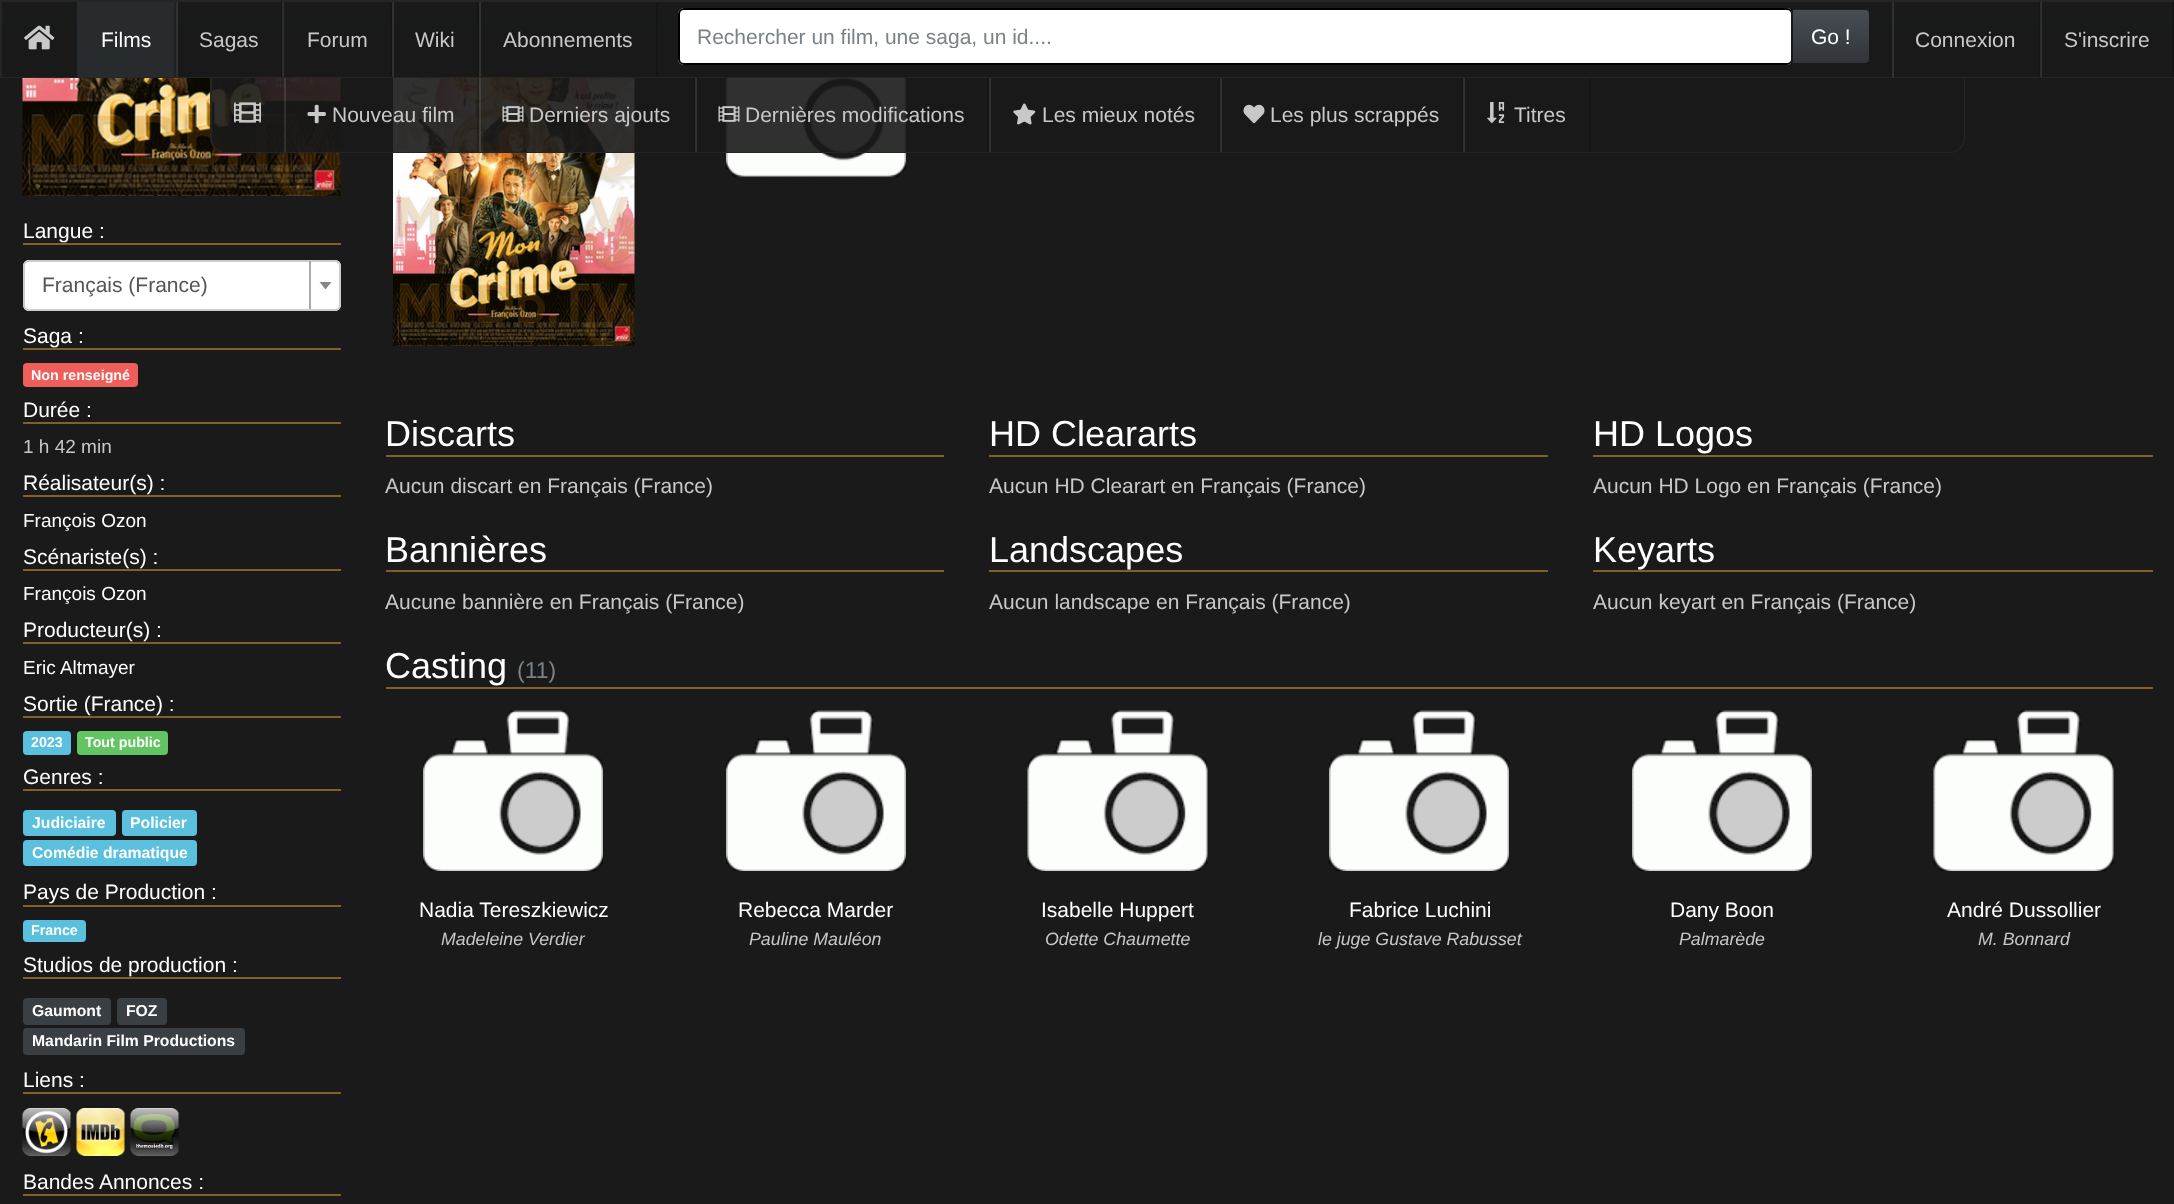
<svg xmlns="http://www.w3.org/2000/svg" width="2174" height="1204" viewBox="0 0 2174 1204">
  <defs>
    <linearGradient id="g1" gradientUnits="userSpaceOnUse" x1="1088" y1="1.5" x2="1088" y2="77"><stop offset="0" stop-color="#202328"/><stop offset="0.7" stop-color="#151719"/><stop offset="1" stop-color="#151719"/></linearGradient>
    <clipPath id="clip1"><rect x="698" y="24" width="1075" height="24"/></clipPath>
    <linearGradient id="g2" gradientUnits="userSpaceOnUse" x1="1831" y1="9" x2="1831" y2="63"><stop offset="0" stop-color="#484e55"/><stop offset="0.6" stop-color="#3a3f44"/><stop offset="1" stop-color="#313539"/></linearGradient>
  </defs>
  <rect width="100%" height="100%" fill="#1a1a1a"/>
  <rect x="2" y="2" width="2170" height="74" fill="url(#g1)"/>
  <image x="22" y="78" width="319" height="118" href="img9.png"/>
  <image x="393" y="78" width="242" height="268" href="img13.png"/>
  <image x="726" y="78" width="180" height="99" href="img14.png"/>
  <path d="M212 77H1964V138C1964 145.5 1957.5 152 1950 152H226C218.5 152 212 145.5 212 138Z" fill="#1a1a1a" fill-opacity="0.9"/>
  <path d="M210 76H1965V138C1965 146 1958 153 1950 153H225C217 153 210 146 210 138ZM212 76H1964V138C1964 145 1957 152 1950 152H225C218 152 212 145 212 138Z" fill="#252525" fill-rule="evenodd"/>
  <rect x="477" y="77" width="2" height="75" fill="#000000" fill-opacity="0.2"/>
  <rect x="284" y="77" width="2" height="75" fill="#ffffff" fill-opacity="0.1"/>
  <rect x="693" y="77" width="2" height="75" fill="#151515"/>
  <rect x="479" y="77" width="2" height="75" fill="#ffffff" fill-opacity="0.1"/>
  <rect x="987" y="77" width="2" height="75" fill="#151515"/>
  <rect x="695" y="77" width="2" height="75" fill="#313131"/>
  <rect x="1218" y="77" width="2" height="75" fill="#151515"/>
  <rect x="989" y="77" width="2" height="75" fill="#313131"/>
  <rect x="1461" y="77" width="2" height="75" fill="#151515"/>
  <rect x="1220" y="77" width="2" height="75" fill="#313131"/>
  <rect x="1589" y="77" width="2" height="75" fill="#151515"/>
  <rect x="1463" y="77" width="2" height="75" fill="#313131"/>
  <rect x="1" y="1" width="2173" height="76" fill="none" stroke="#252525" stroke-width="2"/>
  <rect x="2" y="2" width="2170" height="75" fill="#1a1a1a" fill-opacity="0.9"/>
  <image x="24" y="25" width="31" height="25" href="img1.png"/>
  <rect x="77" y="2" width="97" height="75" fill="#272b2e"/>
  <rect x="174" y="2" width="2" height="75" fill="#1f2225"/>
  <text x="101" y="47" font-family="Liberation Sans" font-size="21" fill="#ffffff">Films</text>
  <rect x="281" y="2" width="2" height="75" fill="#151515"/>
  <rect x="176" y="2" width="2" height="75" fill="#313131"/>
  <text x="199" y="47" font-family="Liberation Sans" font-size="21" fill="#c8c8c8">Sagas</text>
  <rect x="390" y="2" width="2" height="75" fill="#151515"/>
  <rect x="282" y="2" width="2" height="75" fill="#ffffff" fill-opacity="0.1"/>
  <text x="307" y="47" font-family="Liberation Sans" font-size="21" fill="#c8c8c8">Forum</text>
  <rect x="477" y="2" width="2" height="75" fill="#151515"/>
  <rect x="392" y="2" width="2" height="75" fill="#313131"/>
  <text x="415" y="47" font-family="Liberation Sans" font-size="21" fill="#c8c8c8">Wiki</text>
  <rect x="656" y="2" width="2" height="75" fill="#151515"/>
  <rect x="479" y="2" width="2" height="75" fill="#313131"/>
  <text x="503" y="47" font-family="Liberation Sans" font-size="21" fill="#c8c8c8">Abonnements</text>
  <rect x="678" y="8" width="1115" height="57" rx="6" fill="#ffffff"/>
  <path d="M684 10H1786C1789 10 1791 13 1791 15C1791 12 1789 9 1786 9H685C682 9 680 12 680 15C680 13 682 10 684 10Z" fill="#ececec"/>
  <rect x="679" y="9" width="1113" height="55" rx="5" fill="none" stroke="#000000" stroke-width="2"/>
  <g clip-path="url(#clip1)">
    <text x="697" y="44" font-family="Liberation Sans" font-size="21" fill="#7a8288">Rechercher un film, une saga, un id....</text>
  </g>
  <path d="M1791 8H1865C1868.5 8 1871 10.5 1871 14V59C1871 62.5 1868.5 65 1865 65H1791Z" fill="#3a3f44"/>
  <rect x="1793" y="9" width="76" height="54" fill="url(#g2)"/>
  <path d="M1792 9H1865C1868 9 1870 11 1870 14V59C1870 62 1868 64 1865 64H1792Z" fill="none" stroke="#000000" stroke-opacity="0.6" stroke-width="2"/>
  <text x="1811" y="44" font-family="Liberation Sans" font-size="21" fill="#ffffff">Go !</text>
  <rect x="2039" y="2" width="2" height="75" fill="#151515"/>
  <rect x="1892" y="2" width="2" height="75" fill="#313131"/>
  <text x="1915" y="47" font-family="Liberation Sans" font-size="21" fill="#c8c8c8">Connexion</text>
  <rect x="2172" y="2" width="2" height="75" fill="#151515"/>
  <rect x="2040" y="2" width="2" height="75" fill="#ffffff" fill-opacity="0.1"/>
  <text x="2064" y="47" font-family="Liberation Sans" font-size="21" fill="#c8c8c8">S'inscrire</text>
  <image x="234" y="102" width="27" height="21" href="img2.png"/>
  <image x="307" y="104" width="19" height="20" href="img3.png"/>
  <text x="332" y="122" font-family="Liberation Sans" font-size="21" fill="#c8c8c8">Nouveau film</text>
  <image x="502" y="106" width="22" height="16" href="img4.png"/>
  <text x="529" y="122" font-family="Liberation Sans" font-size="21" fill="#c8c8c8">Derniers ajouts</text>
  <image x="718" y="106" width="22" height="16" href="img5.png"/>
  <text x="745" y="122" font-family="Liberation Sans" font-size="21" fill="#c8c8c8">Dernières modifications</text>
  <image x="1013" y="103" width="23" height="22" href="img6.png"/>
  <text x="1042" y="122" font-family="Liberation Sans" font-size="21" fill="#c8c8c8">Les mieux notés</text>
  <image x="1243" y="104" width="22" height="20" href="img7.png"/>
  <text x="1270" y="122" font-family="Liberation Sans" font-size="21" fill="#c8c8c8">Les plus scrappés</text>
  <image x="1487" y="102" width="18" height="21" href="img8.png"/>
  <text x="1514" y="122" font-family="Liberation Sans" font-size="21" fill="#c8c8c8">Titres</text>
  <rect x="23" y="243" width="318" height="2" fill="#816029"/>
  <text x="23" y="238" font-family="Liberation Sans" font-size="21" fill="#ffffff">Langue :</text>
  <rect x="23" y="260" width="318" height="51" rx="6" fill="#ffffff"/>
  <path d="M28 262H334C337 262 339 265 339 267C339 264 337 261 334 261H29C26 261 24 264 24 267C24 265 26 262 28 262Z" fill="#ececec"/>
  <rect x="24" y="261" width="316" height="49" rx="5" fill="none" stroke="#cccccc" stroke-width="2"/>
  <text x="42" y="292" font-family="Liberation Sans" font-size="21" fill="#555555">Français (France)</text>
  <rect x="309" y="261" width="2" height="48" fill="#aaaaaa"/>
  <path d="M319.5 282H331.5L325.5 289.5Z" fill="#888888"/>
  <rect x="23" y="348" width="318" height="2" fill="#816029"/>
  <text x="23" y="343" font-family="Liberation Sans" font-size="21" fill="#ffffff">Saga :</text>
  <rect x="23" y="363" width="115" height="24" rx="4" fill="#ee5f5b"/>
  <text x="31" y="380" font-family="Liberation Sans" font-size="14.25" font-weight="bold" fill="#ffffff">Non renseigné</text>
  <rect x="23" y="422" width="318" height="2" fill="#816029"/>
  <text x="23" y="417" font-family="Liberation Sans" font-size="21" fill="#ffffff">Durée :</text>
  <text x="23" y="453" font-family="Liberation Sans" font-size="19" fill="#c8c8c8">1 h 42 min</text>
  <rect x="23" y="495" width="318" height="2" fill="#816029"/>
  <text x="23" y="490" font-family="Liberation Sans" font-size="21" fill="#ffffff">Réalisateur(s) :</text>
  <text x="23" y="527" font-family="Liberation Sans" font-size="19" fill="#ffffff">François Ozon</text>
  <rect x="23" y="569" width="318" height="2" fill="#816029"/>
  <text x="23" y="564" font-family="Liberation Sans" font-size="21" fill="#ffffff">Scénariste(s) :</text>
  <text x="23" y="600" font-family="Liberation Sans" font-size="19" fill="#ffffff">François Ozon</text>
  <rect x="23" y="642" width="318" height="2" fill="#816029"/>
  <text x="23" y="637" font-family="Liberation Sans" font-size="21" fill="#ffffff">Producteur(s) :</text>
  <text x="23" y="674" font-family="Liberation Sans" font-size="19" fill="#ffffff">Eric Altmayer</text>
  <rect x="23" y="716" width="318" height="2" fill="#816029"/>
  <text x="23" y="711" font-family="Liberation Sans" font-size="21" fill="#ffffff">Sortie (France) :</text>
  <rect x="23" y="731" width="48" height="24" rx="4" fill="#5bc0de"/>
  <text x="31" y="747" font-family="Liberation Sans" font-size="14.25" font-weight="bold" fill="#ffffff">2023</text>
  <rect x="77" y="731" width="91" height="24" rx="4" fill="#62c462"/>
  <text x="85" y="747" font-family="Liberation Sans" font-size="14.25" font-weight="bold" fill="#ffffff">Tout public</text>
  <rect x="23" y="789" width="318" height="2" fill="#816029"/>
  <text x="23" y="784" font-family="Liberation Sans" font-size="21" fill="#ffffff">Genres :</text>
  <rect x="23" y="810" width="93" height="26" rx="4" fill="#5bc0de"/>
  <text x="32" y="828" font-family="Liberation Sans" font-size="15.75" font-weight="bold" fill="#ffffff">Judiciaire</text>
  <rect x="122" y="810" width="75" height="26" rx="4" fill="#5bc0de"/>
  <text x="130" y="828" font-family="Liberation Sans" font-size="15.75" font-weight="bold" fill="#ffffff">Policier</text>
  <rect x="23" y="840" width="174" height="26" rx="4" fill="#5bc0de"/>
  <text x="32" y="858" font-family="Liberation Sans" font-size="15.75" font-weight="bold" fill="#ffffff">Comédie dramatique</text>
  <rect x="23" y="905" width="318" height="2" fill="#816029"/>
  <text x="23" y="899" font-family="Liberation Sans" font-size="21" fill="#ffffff">Pays de Production :</text>
  <rect x="23" y="920" width="63" height="22" rx="4" fill="#5bc0de"/>
  <text x="31" y="935" font-family="Liberation Sans" font-size="14.25" font-weight="bold" fill="#ffffff">France</text>
  <rect x="23" y="977" width="318" height="2" fill="#816029"/>
  <text x="23" y="972" font-family="Liberation Sans" font-size="21" fill="#ffffff">Studios de production :</text>
  <rect x="23" y="998" width="88" height="27" rx="4" fill="#3a3f44"/>
  <text x="32" y="1016" font-family="Liberation Sans" font-size="15.75" font-weight="bold" fill="#ffffff">Gaumont</text>
  <rect x="117" y="998" width="50" height="27" rx="4" fill="#3a3f44"/>
  <text x="126" y="1016" font-family="Liberation Sans" font-size="15.75" font-weight="bold" fill="#ffffff">FOZ</text>
  <rect x="23" y="1028" width="222" height="27" rx="4" fill="#3a3f44"/>
  <text x="32" y="1046" font-family="Liberation Sans" font-size="15.75" font-weight="bold" fill="#ffffff">Mandarin Film Productions</text>
  <rect x="23" y="1092" width="318" height="2" fill="#816029"/>
  <text x="23" y="1087" font-family="Liberation Sans" font-size="21" fill="#ffffff">Liens :</text>
  <image x="22" y="1108" width="49" height="48" href="img10.png"/>
  <image x="76" y="1108" width="49" height="48" href="img11.png"/>
  <image x="130" y="1108" width="49" height="48" href="img12.png"/>
  <rect x="23" y="1194" width="318" height="2" fill="#816029"/>
  <text x="23" y="1189" font-family="Liberation Sans" font-size="21" fill="#ffffff">Bandes Annonces :</text>
  <rect x="386" y="455" width="558" height="2" fill="#816029"/>
  <text x="385" y="446" font-family="Liberation Sans" font-size="36" fill="#ffffff">Discarts</text>
  <text x="385" y="493" font-family="Liberation Sans" font-size="21" fill="#c8c8c8">Aucun discart en Français (France)</text>
  <rect x="989" y="455" width="559" height="2" fill="#816029"/>
  <text x="989" y="446" font-family="Liberation Sans" font-size="36" fill="#ffffff">HD Cleararts</text>
  <text x="989" y="493" font-family="Liberation Sans" font-size="21" fill="#c8c8c8">Aucun HD Clearart en Français (France)</text>
  <rect x="1593" y="455" width="560" height="2" fill="#816029"/>
  <text x="1593" y="446" font-family="Liberation Sans" font-size="36" fill="#ffffff">HD Logos</text>
  <text x="1593" y="493" font-family="Liberation Sans" font-size="21" fill="#c8c8c8">Aucun HD Logo en Français (France)</text>
  <rect x="386" y="570" width="558" height="2" fill="#816029"/>
  <text x="385" y="562" font-family="Liberation Sans" font-size="36" fill="#ffffff">Bannières</text>
  <text x="385" y="609" font-family="Liberation Sans" font-size="21" fill="#c8c8c8">Aucune bannière en Français (France)</text>
  <rect x="989" y="570" width="559" height="2" fill="#816029"/>
  <text x="989" y="562" font-family="Liberation Sans" font-size="36" fill="#ffffff">Landscapes</text>
  <text x="989" y="609" font-family="Liberation Sans" font-size="21" fill="#c8c8c8">Aucun landscape en Français (France)</text>
  <rect x="1593" y="570" width="560" height="2" fill="#816029"/>
  <text x="1593" y="562" font-family="Liberation Sans" font-size="36" fill="#ffffff">Keyarts</text>
  <text x="1593" y="609" font-family="Liberation Sans" font-size="21" fill="#c8c8c8">Aucun keyart en Français (France)</text>
  <rect x="386" y="687" width="1767" height="2" fill="#816029"/>
  <text x="385" y="678" font-family="Liberation Sans" font-size="36" fill="#ffffff">Casting</text>
  <text x="517" y="678" font-family="Liberation Sans" font-size="23" fill="#7a8288">(11)</text>
  <image x="423" y="710" width="180" height="161" href="img15.png"/>
  <text x="419" y="917" font-family="Liberation Sans" font-size="21" fill="#ffffff">Nadia Tereszkiewicz</text>
  <text x="441" y="945" font-family="Liberation Sans" font-size="17.8" font-style="italic" fill="#c8c8c8">Madeleine Verdier</text>
  <image x="726" y="710" width="180" height="161" href="img16.png"/>
  <text x="738" y="917" font-family="Liberation Sans" font-size="21" fill="#ffffff">Rebecca Marder</text>
  <text x="749" y="945" font-family="Liberation Sans" font-size="17.8" font-style="italic" fill="#c8c8c8">Pauline Mauléon</text>
  <image x="1027" y="710" width="181" height="161" href="img17.png"/>
  <text x="1041" y="917" font-family="Liberation Sans" font-size="21" fill="#ffffff">Isabelle Huppert</text>
  <text x="1045" y="945" font-family="Liberation Sans" font-size="17.8" font-style="italic" fill="#c8c8c8">Odette Chaumette</text>
  <image x="1329" y="710" width="180" height="161" href="img18.png"/>
  <text x="1349" y="917" font-family="Liberation Sans" font-size="21" fill="#ffffff">Fabrice Luchini</text>
  <text x="1318" y="945" font-family="Liberation Sans" font-size="17.8" font-style="italic" fill="#c8c8c8">le juge Gustave Rabusset</text>
  <image x="1632" y="710" width="180" height="161" href="img19.png"/>
  <text x="1670" y="917" font-family="Liberation Sans" font-size="21" fill="#ffffff">Dany Boon</text>
  <text x="1679" y="945" font-family="Liberation Sans" font-size="17.8" font-style="italic" fill="#c8c8c8">Palmarède</text>
  <image x="1933" y="710" width="181" height="161" href="img20.png"/>
  <text x="1947" y="917" font-family="Liberation Sans" font-size="21" fill="#ffffff">André Dussollier</text>
  <text x="1978" y="945" font-family="Liberation Sans" font-size="17.8" font-style="italic" fill="#c8c8c8">M. Bonnard</text>
</svg>
